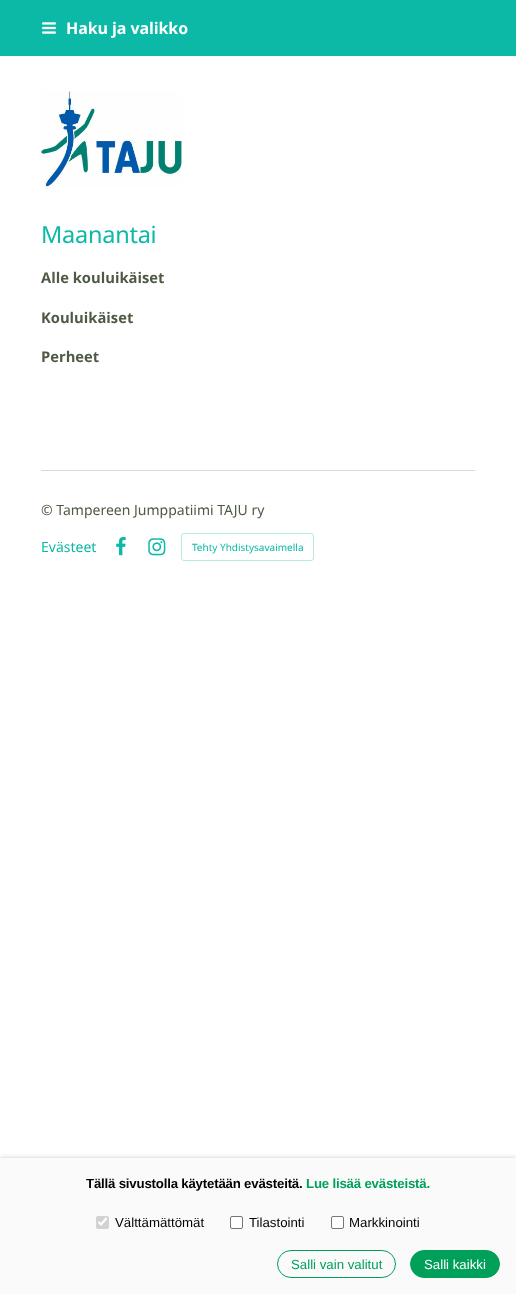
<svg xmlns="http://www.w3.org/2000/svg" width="516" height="1294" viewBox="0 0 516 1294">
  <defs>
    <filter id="blur1" x="-50%" y="-200%" width="200%" height="500%"><feGaussianBlur stdDeviation="2.5"/></filter>
  </defs>
  <rect width="100%" height="100%" fill="#ffffff"/>
  <rect x="0" y="0" width="516" height="56" fill="#0bb9a6"/>
  <image x="42" y="22" width="14" height="12" href="img1.png"/>
  <text x="66" y="34" font-family="Noto Sans" font-size="16" font-weight="bold" letter-spacing="-0.1" fill="#ffffff">Haku ja valikko</text>
  <image x="41" y="91" width="141" height="98" href="img2.png"/>
  <text x="41" y="243" font-family="Noto Sans" font-size="23.5" letter-spacing="-0.25" fill="#0bb9a6">Maanantai</text>
  <text x="41" y="283" font-family="Noto Sans" font-size="14.75" font-weight="bold" fill="#4f5a44">Alle kouluikäiset</text>
  <text x="41" y="323" font-family="Noto Sans" font-size="14.75" font-weight="bold" fill="#4f5a44">Kouluikäiset</text>
  <text x="41" y="362" font-family="Noto Sans" font-size="14.75" font-weight="bold" fill="#4f5a44">Perheet</text>
  <rect x="41" y="470" width="434" height="1" fill="#d9d9d9"/>
  <text x="41" y="515" font-family="Noto Sans" font-size="14" fill="#4f5a44">© Tampereen Jumppatiimi TAJU ry</text>
  <text x="41" y="552" font-family="Noto Sans" font-size="14" fill="#0bb9a6">Evästeet</text>
  <image x="116" y="537" width="10" height="19" href="img3.png"/>
  <image x="148" y="538" width="18" height="18" href="img4.png"/>
  <rect x="181.5" y="533.5" width="132" height="27" rx="2.5" fill="none" stroke="#b6eae4"/>
  <text x="192" y="551" font-family="Noto Sans" font-size="10" fill="#0bb9a6">Tehty Yhdistysavaimella</text>
  <rect x="0" y="1158" width="516" height="136" fill="#000000" fill-opacity="0.2" filter="url(#blur1)"/>
  <rect x="0" y="1158" width="516" height="136" fill="#fafafa"/>
  <text x="86" y="1188" font-family="Liberation Sans" font-size="13.25" font-weight="bold" letter-spacing="-0.2" fill="#020202">Tällä sivustolla käytetään evästeitä.</text>
  <text x="306" y="1188" font-family="Liberation Sans" font-size="13.25" font-weight="bold" letter-spacing="-0.2" fill="#00a05a">Lue lisää evästeistä.</text>
  <rect x="96" y="1216" width="13" height="13" rx="2" fill="#d2d2d2"/>
  <path d="M98.5 1222L101 1224.5L106.5 1218" fill="none" stroke="#ffffff" stroke-width="2.1"/>
  <text x="115" y="1227" font-family="Liberation Sans" font-size="13.25" fill="#020202">Välttämättömät</text>
  <rect x="230.5" y="1216.5" width="12" height="12" rx="1.5" fill="#ffffff" stroke="#767676"/>
  <text x="249" y="1227" font-family="Liberation Sans" font-size="13.25" fill="#020202">Tilastointi</text>
  <rect x="331.5" y="1216.5" width="12" height="12" rx="1.5" fill="#ffffff" stroke="#767676"/>
  <text x="349" y="1227" font-family="Liberation Sans" font-size="13.25" fill="#020202">Markkinointi</text>
  <rect x="277.5" y="1250.5" width="118" height="27" rx="13.5" fill="none" stroke="#00a05a"/>
  <text x="291" y="1269" font-family="Liberation Sans" font-size="13.25" fill="#00a05a">Salli vain valitut</text>
  <rect x="410.5" y="1250.5" width="89" height="27" rx="13.5" fill="#00a05a" stroke="#00a05a"/>
  <text x="424" y="1269" font-family="Liberation Sans" font-size="13.25" fill="#ffffff">Salli kaikki</text>
</svg>
